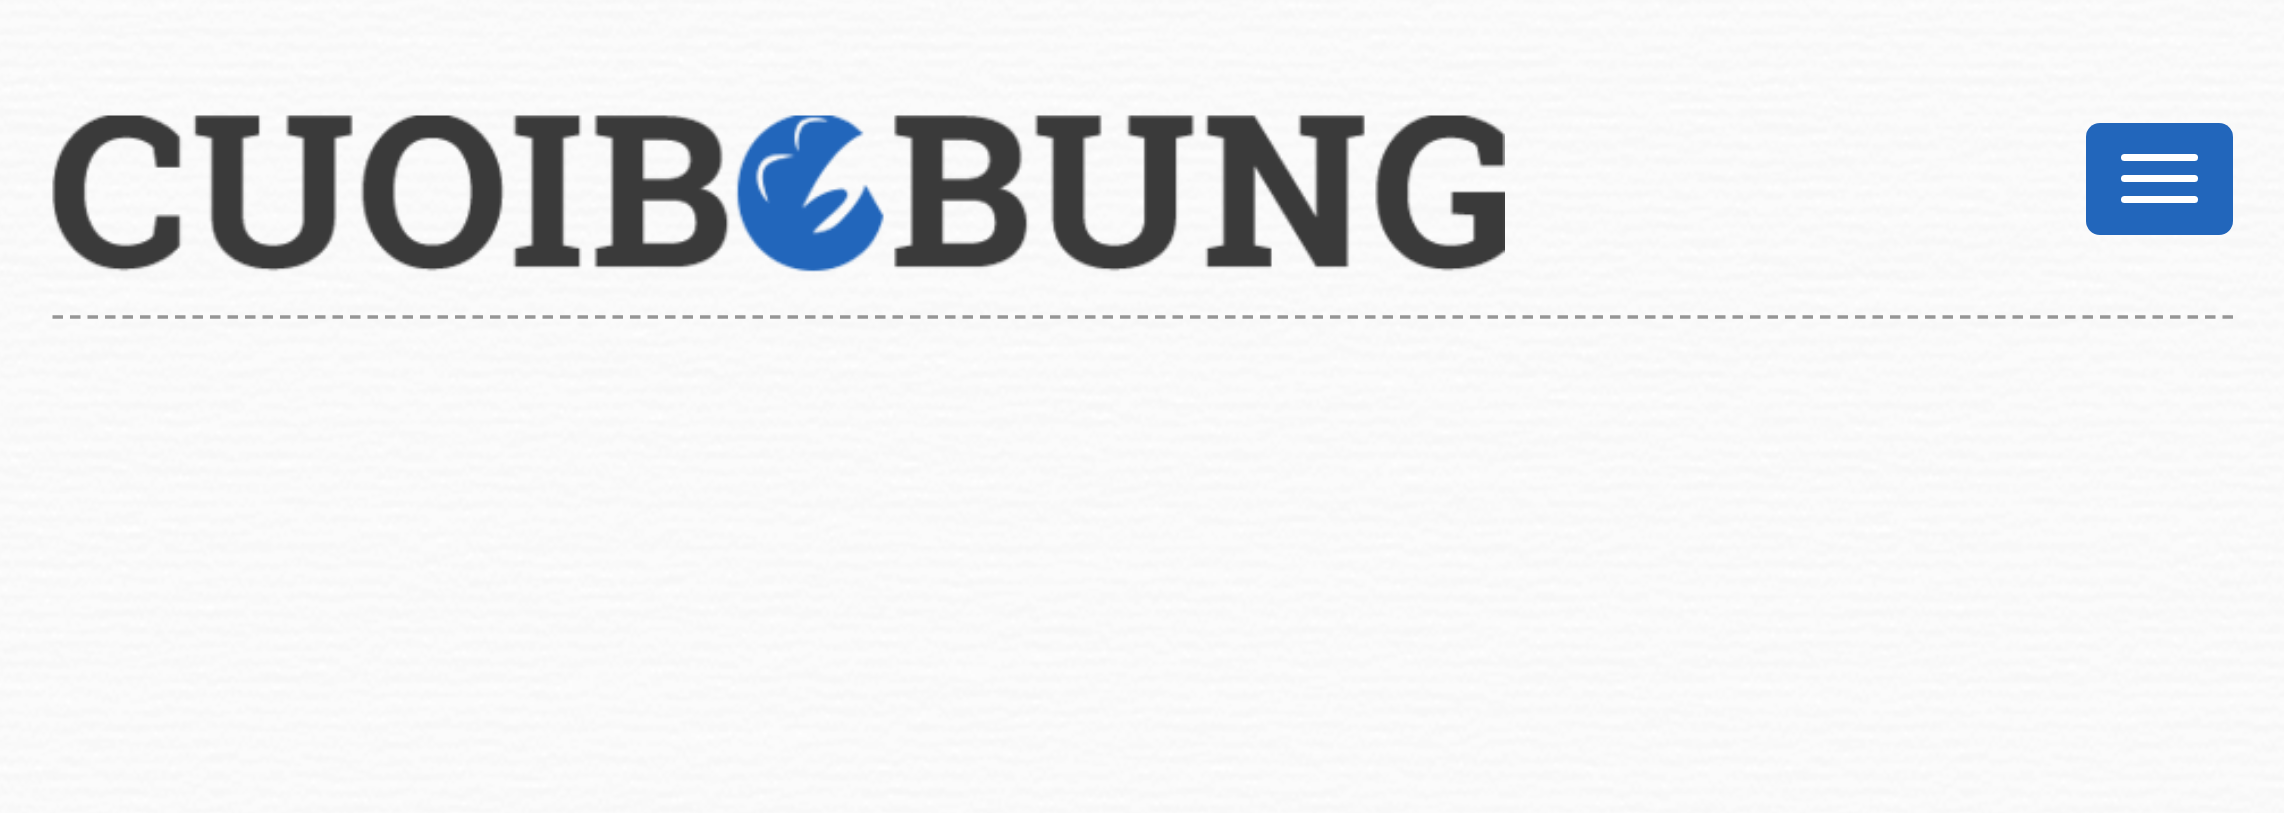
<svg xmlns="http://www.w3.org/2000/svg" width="2284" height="813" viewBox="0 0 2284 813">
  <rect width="100%" height="100%" fill="#ffffff"/>
  <image x="0" y="0" width="2284" height="813" href="img1.png"/>
  <path d="M52.5 317H2233" fill="none" stroke="#969696" stroke-width="3.5" stroke-dasharray="10.5 7"/>
  <image x="52" y="115" width="1453" height="157" href="img2.png"/>
  <rect x="2086" y="123" width="147" height="112" rx="14" fill="#2266bb"/>
  <rect x="2121" y="154" width="77" height="7" rx="3.5" fill="#ffffff"/>
  <rect x="2121" y="175" width="77" height="7" rx="3.5" fill="#ffffff"/>
  <rect x="2121" y="196" width="77" height="7" rx="3.5" fill="#ffffff"/>
</svg>
